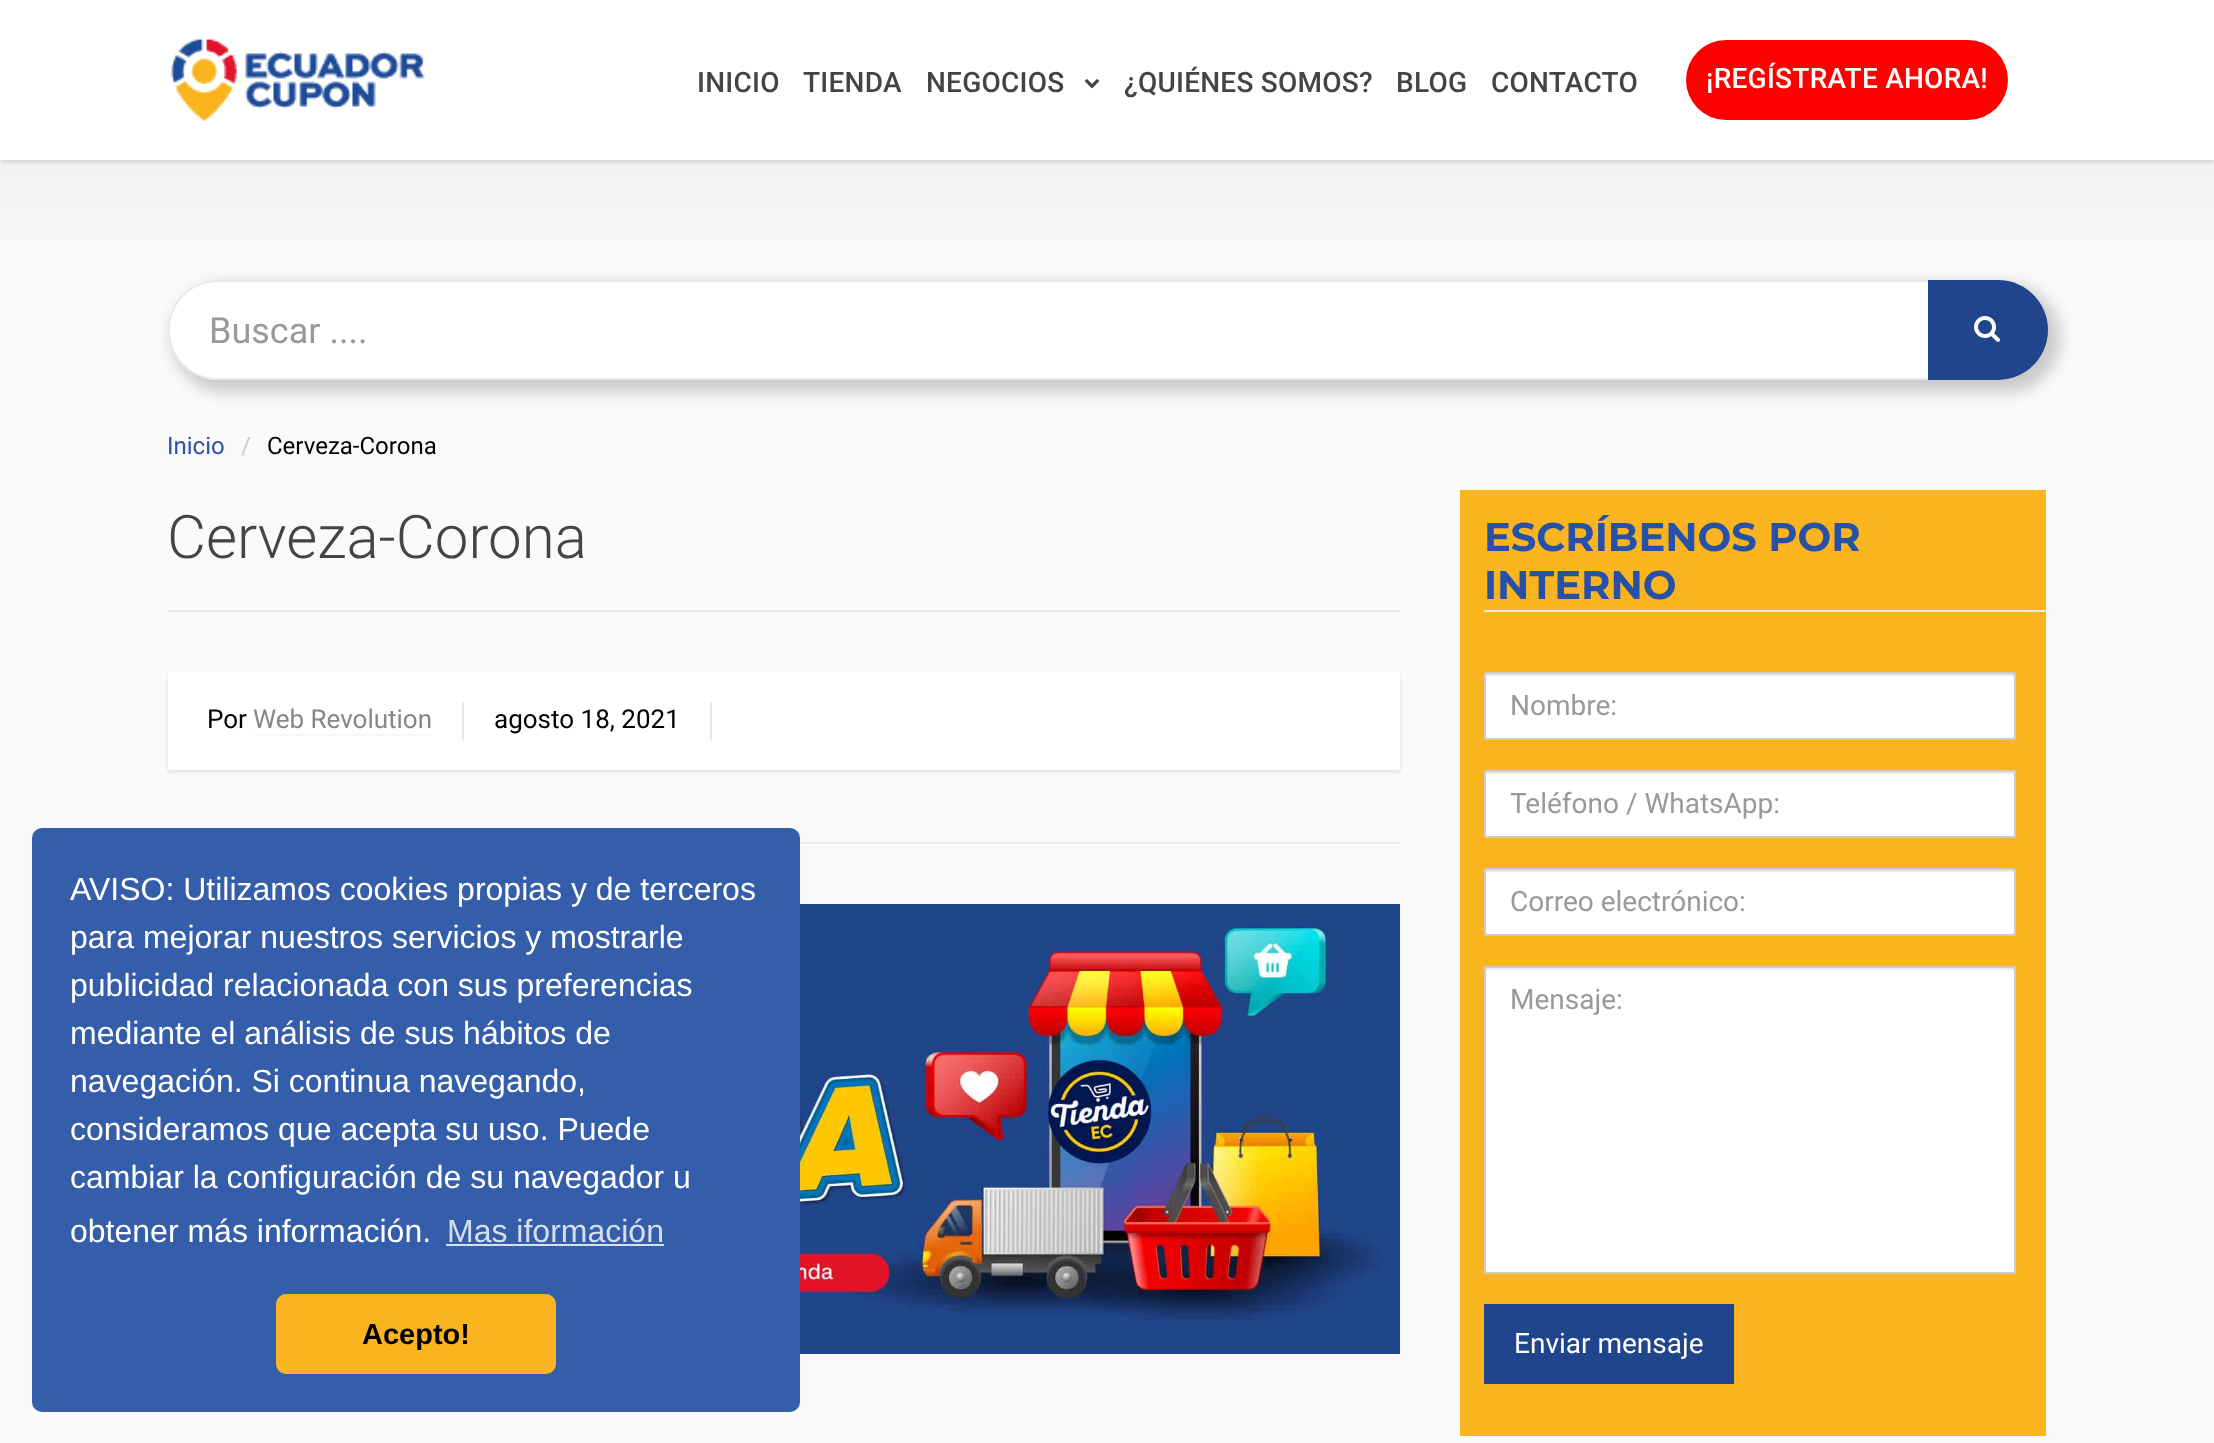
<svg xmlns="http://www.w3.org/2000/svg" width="2214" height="1443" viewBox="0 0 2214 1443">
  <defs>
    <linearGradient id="g1" gradientUnits="userSpaceOnUse" x1="1107" y1="160" x2="1107" y2="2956"><stop offset="0" stop-color="#f2f2f2"/><stop offset="0.04" stop-color="#fafafa"/></linearGradient>
    <filter id="blur1" x="-50%" y="-200%" width="200%" height="500%"><feGaussianBlur stdDeviation="2"/></filter>
    <filter id="blur2" x="-50%" y="-200%" width="200%" height="500%"><feGaussianBlur stdDeviation="8"/></filter>
  </defs>
  <rect width="100%" height="100%" fill="#ffffff"/>
  <rect x="0" y="160" width="2214" height="1283" fill="url(#g1)"/>
  <rect x="0" y="2" width="2214" height="160" fill="#000000" fill-opacity="0.15" filter="url(#blur1)"/>
  <rect x="0" y="0" width="2214" height="160" fill="#ffffff"/>
  <image x="171" y="39" width="254" height="82" href="img1.png"/>
  <text x="697" y="92" font-family="Roboto" font-size="28" font-weight="500" letter-spacing="0.25" fill="#444444">INICIO</text>
  <text x="803" y="92" font-family="Roboto" font-size="28" font-weight="500" letter-spacing="0.25" fill="#444444">TIENDA</text>
  <text x="926" y="92" font-family="Roboto" font-size="28" font-weight="500" letter-spacing="0.25" fill="#444444">NEGOCIOS</text>
  <image x="1084" y="79" width="16" height="10" href="img2.png"/>
  <text x="1124" y="92" font-family="Roboto" font-size="28" font-weight="500" letter-spacing="0.25" fill="#444444">¿QUIÉNES SOMOS?</text>
  <text x="1396" y="92" font-family="Roboto" font-size="28" font-weight="500" letter-spacing="0.25" fill="#444444">BLOG</text>
  <text x="1491" y="92" font-family="Roboto" font-size="28" font-weight="500" letter-spacing="0.25" fill="#444444">CONTACTO</text>
  <rect x="1686" y="40" width="322" height="80" rx="40" fill="#ff0000"/>
  <text x="1706" y="88" font-family="Roboto" font-size="28" font-weight="500" letter-spacing="0.25" fill="#ffffff">¡REGÍSTRATE AHORA!</text>
  <rect x="172" y="284" width="1888" height="108" rx="54" fill="#000000" fill-opacity="0.2" filter="url(#blur2)"/>
  <path d="M218 280H1930V380H218C190.5 380 168 357.5 168 330C168 302.5 190.5 280 218 280Z" fill="#ffffff"/>
  <path d="M218 280H1930V380H218C190 380 168 358 168 330C168 302 190 280 218 280ZM218 282H1930V378H218C191 378 170 357 170 330C170 303 191 282 218 282Z" fill="#e9e9e9" fill-rule="evenodd"/>
  <text x="209" y="343" font-family="Roboto" font-size="36" fill="#999999">Buscar ....</text>
  <path d="M1928 280H1998C2025.5 280 2048 302.5 2048 330C2048 357.5 2025.5 380 1998 380H1928Z" fill="#20458c"/>
  <image x="1974" y="316" width="26" height="26" href="img3.png"/>
  <text x="167" y="454" font-family="Roboto" font-size="24" fill="#2750a8">Inicio</text>
  <text x="241" y="454" font-family="Roboto" font-size="24" fill="#cccccc">/</text>
  <text x="267" y="454" font-family="Roboto" font-size="24" fill="#000000">Cerveza-Corona</text>
  <rect x="168" y="610" width="1232" height="2" fill="#e9e9e9"/>
  <text x="167" y="558" font-family="Roboto" font-size="60" font-weight="300" fill="#444444">Cerveza-Corona</text>
  <rect x="800" y="842" width="600" height="2" fill="#eeeeee"/>
  <rect x="168" y="674" width="1232" height="98" fill="#000000" fill-opacity="0.1" filter="url(#blur1)"/>
  <rect x="168" y="672" width="1232" height="98" fill="#ffffff"/>
  <rect x="462" y="702" width="2" height="38" fill="#e6e6e6"/>
  <text x="207" y="728" font-family="Roboto" font-size="26" fill="#000000">Por</text>
  <text x="253" y="728" font-family="Roboto" font-size="26" fill="#868686">Web Revolution</text>
  <rect x="254" y="734" width="178" height="2" fill="#f7f7f7"/>
  <rect x="710" y="702" width="2" height="38" fill="#e6e6e6"/>
  <text x="494" y="728" font-family="Roboto" font-size="26" fill="#000000">agosto 18, 2021</text>
  <image x="800" y="904" width="600" height="450" href="img4.png"/>
  <rect x="1460" y="490" width="586" height="946" fill="#f9b41f"/>
  <rect x="1484" y="610" width="562" height="2" fill="#e9e9e9"/>
  <text x="1484" y="551" font-family="Montserrat" font-size="40" font-weight="bold" fill="#2750a8">ESCRÍBENOS POR</text>
  <text x="1484" y="599" font-family="Montserrat" font-size="40" font-weight="bold" fill="#2750a8">INTERNO</text>
  <rect x="1484" y="672" width="532" height="68" rx="4" fill="#ffffff"/>
  <path d="M1488 676H2012C2013 676 2014 677 2014 678V675L2013 674H1488C1486 674 1486 676 1486 678C1486 677 1487 676 1488 676Z" fill="#ececec"/>
  <rect x="1485" y="673" width="530" height="66" rx="3" fill="none" stroke="#cccccc" stroke-width="2"/>
  <text x="1510" y="715" font-family="Roboto" font-size="28" fill="#999999">Nombre:</text>
  <rect x="1484" y="770" width="532" height="68" rx="4" fill="#ffffff"/>
  <path d="M1488 774H2012C2013 774 2014 775 2014 776V773L2013 772H1488C1486 772 1486 774 1486 776C1486 775 1487 774 1488 774Z" fill="#ececec"/>
  <rect x="1485" y="771" width="530" height="66" rx="3" fill="none" stroke="#cccccc" stroke-width="2"/>
  <text x="1510" y="813" font-family="Roboto" font-size="28" fill="#999999">Teléfono / WhatsApp:</text>
  <rect x="1484" y="868" width="532" height="68" rx="4" fill="#ffffff"/>
  <path d="M1488 872H2012C2013 872 2014 873 2014 874V871L2013 870H1488C1486 870 1486 872 1486 874C1486 873 1487 872 1488 872Z" fill="#ececec"/>
  <rect x="1485" y="869" width="530" height="66" rx="3" fill="none" stroke="#cccccc" stroke-width="2"/>
  <text x="1510" y="911" font-family="Roboto" font-size="28" fill="#999999">Correo electrónico:</text>
  <rect x="1484" y="966" width="532" height="308" rx="4" fill="#ffffff"/>
  <path d="M1488 970H2012C2013 970 2014 971 2014 972V969L2013 968H1488C1486 968 1486 970 1486 972C1486 971 1487 970 1488 970Z" fill="#ececec"/>
  <rect x="1485" y="967" width="530" height="306" rx="3" fill="none" stroke="#cccccc" stroke-width="2"/>
  <text x="1510" y="1009" font-family="Roboto" font-size="28" fill="#999999">Mensaje:</text>
  <rect x="1484" y="1304" width="250" height="80" fill="#20458c"/>
  <text x="1514" y="1353" font-family="Roboto" font-size="28" fill="#ffffff">Enviar mensaje</text>
  <rect x="32" y="828" width="768" height="584" rx="10" fill="#355eaa"/>
  <text x="70" y="900" font-family="Liberation Sans" font-size="32" fill="#ffffff">AVISO: Utilizamos cookies propias y de terceros</text>
  <text x="70" y="948" font-family="Liberation Sans" font-size="32" fill="#ffffff">para mejorar nuestros servicios y mostrarle</text>
  <text x="70" y="996" font-family="Liberation Sans" font-size="32" fill="#ffffff">publicidad relacionada con sus preferencias</text>
  <text x="70" y="1044" font-family="Liberation Sans" font-size="32" fill="#ffffff">mediante el análisis de sus hábitos de</text>
  <text x="70" y="1092" font-family="Liberation Sans" font-size="32" fill="#ffffff">navegación. Si continua navegando,</text>
  <text x="70" y="1140" font-family="Liberation Sans" font-size="32" fill="#ffffff">consideramos que acepta su uso. Puede</text>
  <text x="70" y="1188" font-family="Liberation Sans" font-size="32" fill="#ffffff">cambiar la configuración de su navegador u</text>
  <text x="70" y="1242" font-family="Liberation Sans" font-size="32" fill="#ffffff">obtener más información.</text>
  <text x="447" y="1242" font-family="Liberation Sans" font-size="32" fill="#d7dfee">Mas iformación</text>
  <rect x="446" y="1244" width="218" height="2" fill="#d7dfee"/>
  <rect x="276" y="1294" width="280" height="80" rx="10" fill="#f9b41f"/>
  <text x="362" y="1344" font-family="Liberation Sans" font-size="29" font-weight="bold" fill="#000000">Acepto!</text>
</svg>
